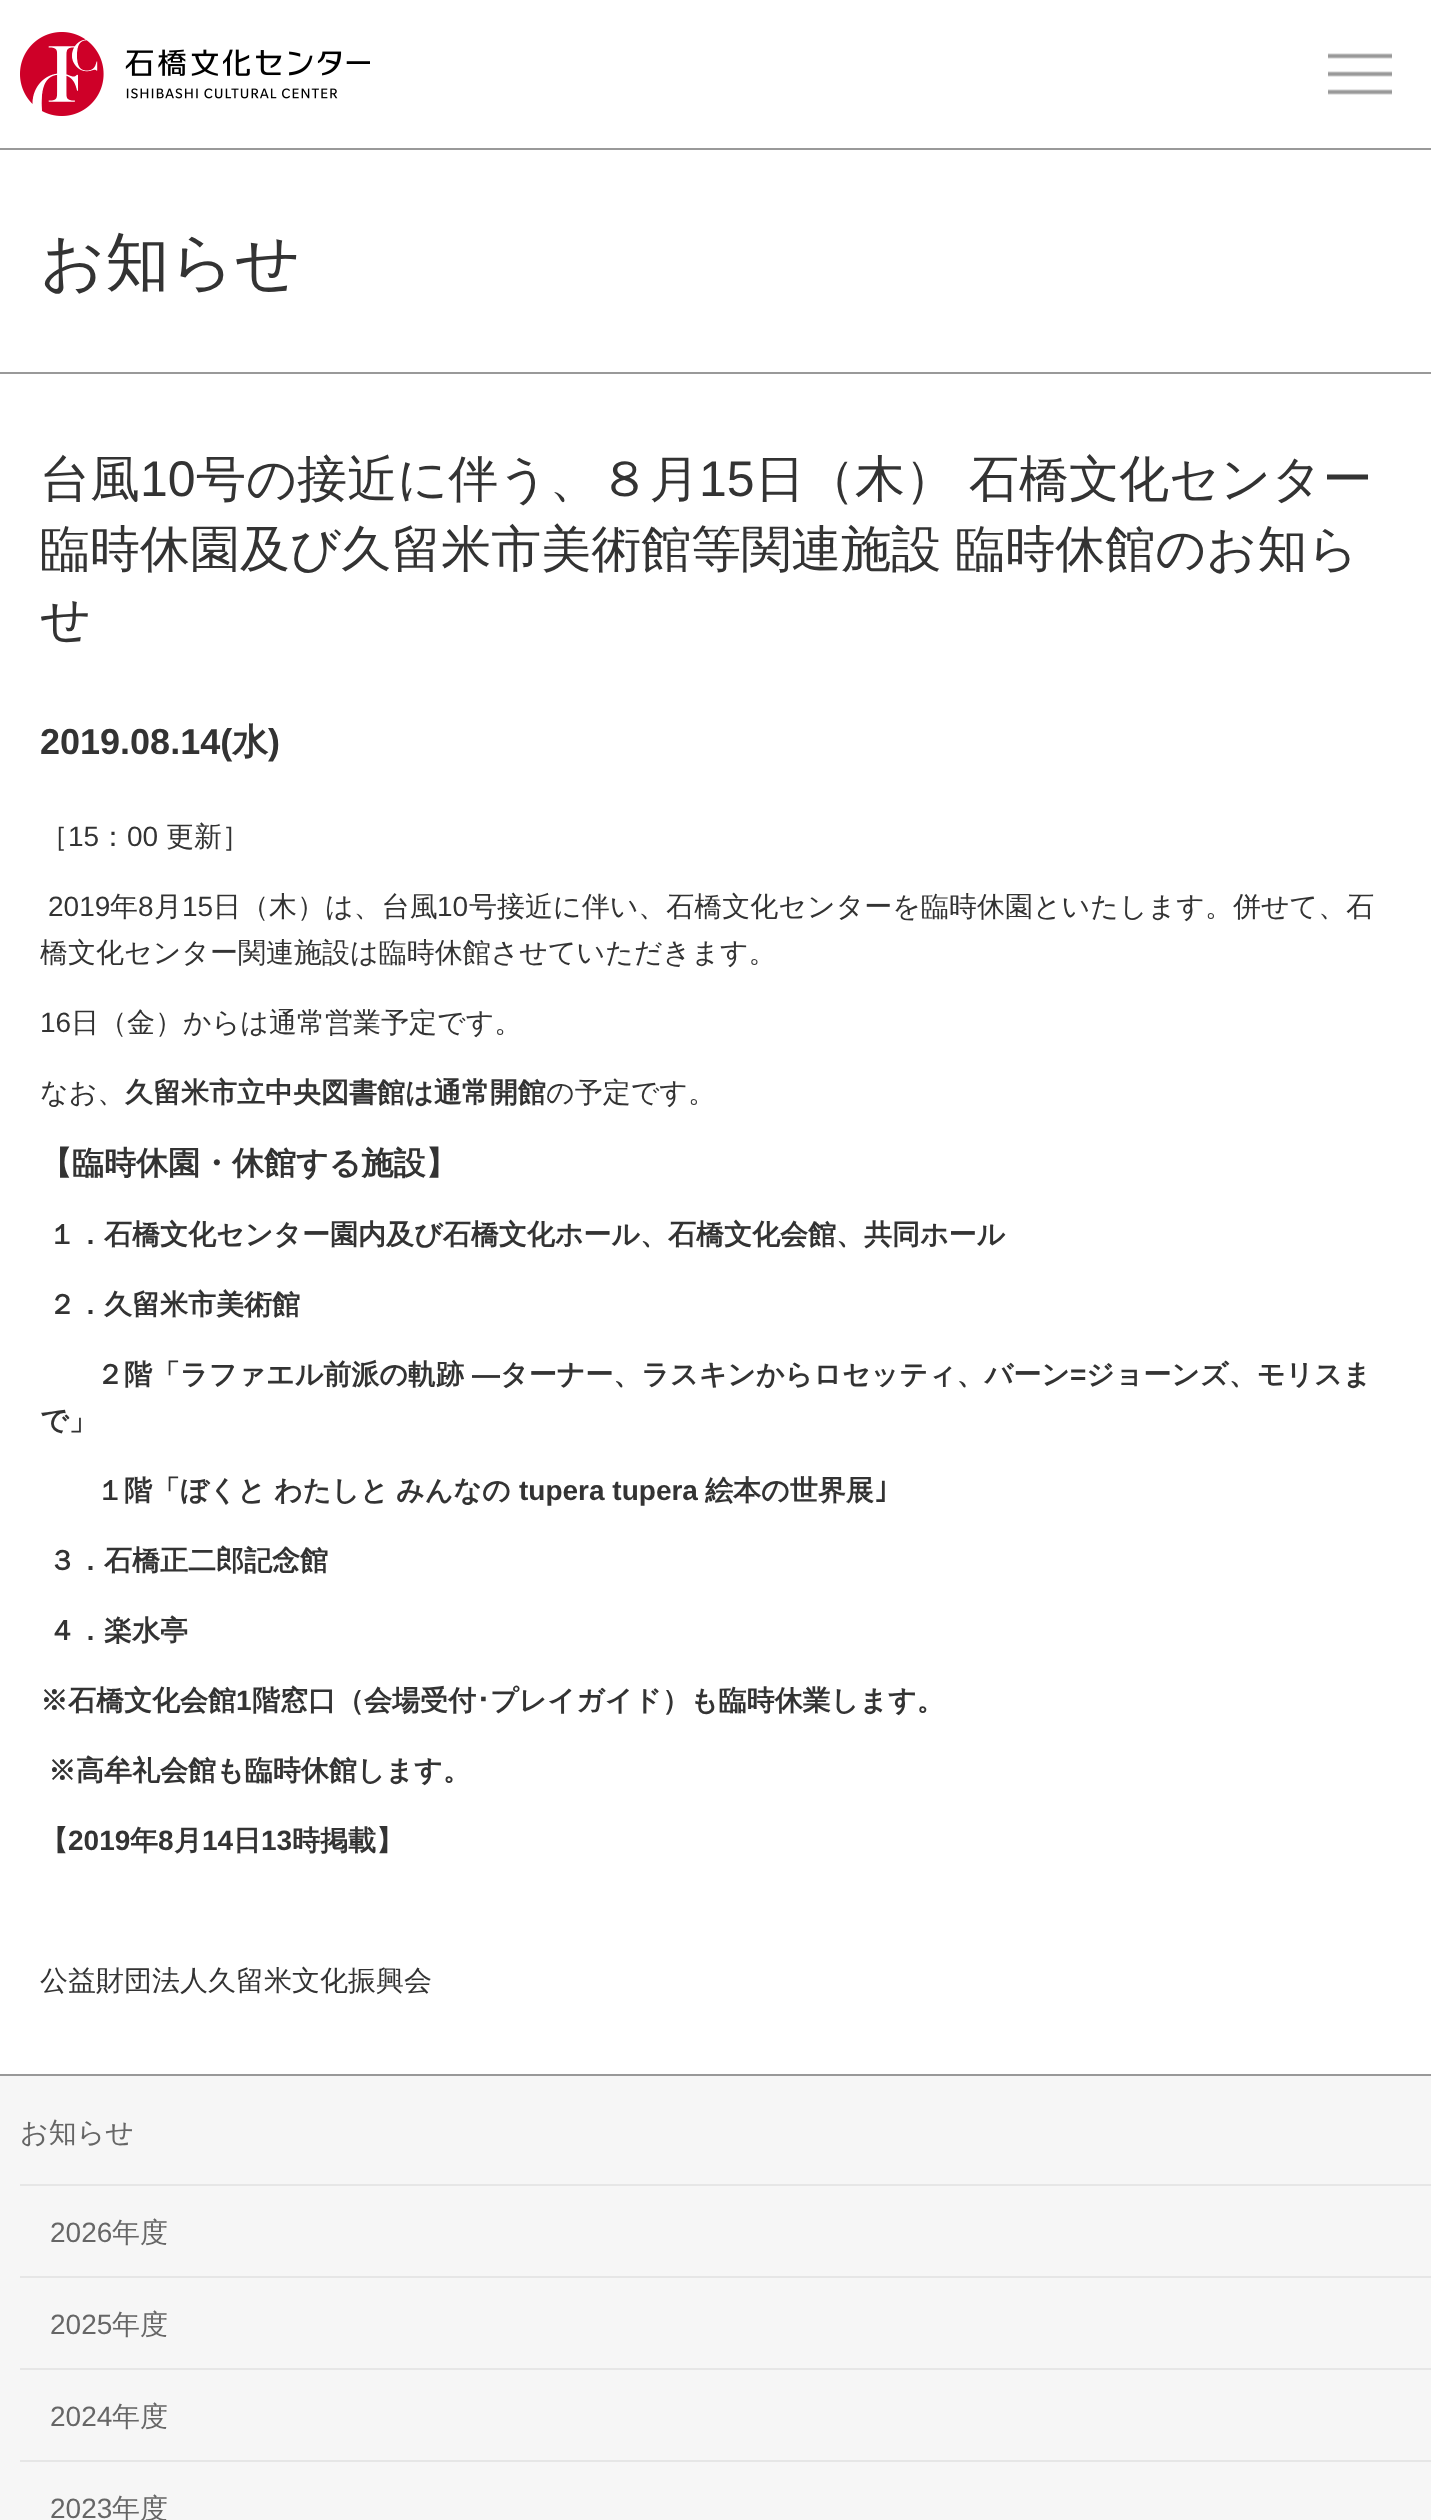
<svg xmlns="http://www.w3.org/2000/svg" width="1431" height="2520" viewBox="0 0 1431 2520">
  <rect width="100%" height="100%" fill="#ffffff"/>
  <rect x="0" y="148" width="1431" height="2" fill="#999999"/>
  <image x="20" y="32" width="350" height="84" href="img1.png"/>
  <image x="1328" y="53" width="64" height="42" href="img2.png"/>
  <text x="40" y="284" font-family="WenQuanYi Zen Hei" font-size="64" font-weight="500" fill="#333333">お知らせ</text>
  <rect x="0" y="372" width="1431" height="2" fill="#999999"/>
  <text x="40" y="496" font-family="WenQuanYi Zen Hei" font-size="50" font-weight="500" fill="#333333">台風</text>
  <text x="140" y="496" font-family="Liberation Sans" font-size="50" fill="#333333">10</text>
  <text x="196" y="496" font-family="WenQuanYi Zen Hei" font-size="50" font-weight="500" fill="#333333">号の接近に伴う、８月</text>
  <text x="699" y="496" font-family="Liberation Sans" font-size="50" fill="#333333">15</text>
  <text x="755" y="496" word-spacing="-1" font-family="WenQuanYi Zen Hei" font-size="50" font-weight="500" fill="#333333">日（木） 石橋文化センター</text>
  <text x="40" y="566" word-spacing="-1" font-family="WenQuanYi Zen Hei" font-size="50" font-weight="500" fill="#333333">臨時休園及び久留米市美術館等関連施設 臨時休館のお知ら</text>
  <text x="40" y="636" font-family="WenQuanYi Zen Hei" font-size="50" font-weight="500" fill="#333333">せ</text>
  <text x="40" y="754" font-family="Liberation Sans" font-size="36" font-weight="bold" fill="#333333">2019.08.14(</text>
  <text x="232" y="754" font-family="WenQuanYi Zen Hei" font-size="36" font-weight="bold" fill="#333333">水</text>
  <text x="268" y="754" font-family="Liberation Sans" font-size="36" font-weight="bold" fill="#333333">)</text>
  <text x="40" y="846" font-family="WenQuanYi Zen Hei" font-size="28" font-weight="500" fill="#333333">［</text>
  <text x="68" y="846" font-family="Liberation Sans" font-size="28" fill="#333333">15</text>
  <text x="99" y="846" font-family="WenQuanYi Zen Hei" font-size="28" font-weight="500" fill="#333333">：</text>
  <text x="127" y="846" font-family="Liberation Sans" font-size="28" fill="#333333">00</text>
  <text x="166" y="846" font-family="WenQuanYi Zen Hei" font-size="28" font-weight="500" fill="#333333">更新］</text>
  <text x="48" y="916" font-family="Liberation Sans" font-size="28" fill="#333333">2019</text>
  <text x="110" y="916" font-family="WenQuanYi Zen Hei" font-size="28" font-weight="500" fill="#333333">年</text>
  <text x="138" y="916" font-family="Liberation Sans" font-size="28" fill="#333333">8</text>
  <text x="154" y="916" font-family="WenQuanYi Zen Hei" font-size="28" font-weight="500" fill="#333333">月</text>
  <text x="182" y="916" font-family="Liberation Sans" font-size="28" fill="#333333">15</text>
  <text x="213" y="916" font-family="WenQuanYi Zen Hei" font-size="28" font-weight="500" fill="#333333">日（木）は、台風</text>
  <text x="437" y="916" font-family="Liberation Sans" font-size="28" fill="#333333">10</text>
  <text x="469" y="916" font-family="WenQuanYi Zen Hei" font-size="28" font-weight="500" fill="#333333">号接近に伴い、石橋文化センターを臨時休園といたします。併せて、石</text>
  <text x="40" y="962" font-family="WenQuanYi Zen Hei" font-size="28" font-weight="500" fill="#333333">橋文化センター関連施設は臨時休館させていただきます。</text>
  <text x="40" y="1032" font-family="Liberation Sans" font-size="28" fill="#333333">16</text>
  <text x="71" y="1032" font-family="WenQuanYi Zen Hei" font-size="28" font-weight="500" fill="#333333">日（金）からは通常営業予定です。</text>
  <text x="40" y="1102" font-family="WenQuanYi Zen Hei" font-size="28" font-weight="500" fill="#333333">なお、</text>
  <text x="125" y="1102" font-family="WenQuanYi Zen Hei" font-size="28" font-weight="bold" fill="#333333">久留米市立中央図書館は通常開館</text>
  <text x="546" y="1102" font-family="WenQuanYi Zen Hei" font-size="28" font-weight="500" fill="#333333">の予定です。</text>
  <text x="40" y="1174" font-family="WenQuanYi Zen Hei" font-size="32" font-weight="bold" fill="#333333">【臨時休園・休館する施設】</text>
  <text x="48" y="1244" font-family="WenQuanYi Zen Hei" font-size="28" font-weight="bold" fill="#333333">１．石橋文化センター園内及び石橋文化ホール、石橋文化会館、共同ホール</text>
  <text x="48" y="1314" font-family="WenQuanYi Zen Hei" font-size="28" font-weight="bold" fill="#333333">２．久留米市美術館</text>
  <text x="96" y="1384" font-family="WenQuanYi Zen Hei" font-size="28" font-weight="bold" fill="#333333">２階「ラファエル前派の軌跡</text>
  <text x="472" y="1384" font-family="Liberation Sans" font-size="28" font-weight="bold" fill="#333333">—</text>
  <text x="500" y="1384" font-family="WenQuanYi Zen Hei" font-size="28" font-weight="bold" fill="#333333">ターナー、ラスキンからロセッティ、バーン</text>
  <text x="1070" y="1384" font-family="Liberation Sans" font-size="28" font-weight="bold" fill="#333333">=</text>
  <text x="1086" y="1384" font-family="WenQuanYi Zen Hei" font-size="28" font-weight="bold" fill="#333333">ジョーンズ、モリスま</text>
  <text x="40" y="1430" font-family="WenQuanYi Zen Hei" font-size="28" font-weight="bold" fill="#333333">で」</text>
  <text x="96" y="1500" font-family="WenQuanYi Zen Hei" font-size="28" font-weight="bold" fill="#333333">１階「ぼくと</text>
  <text x="274" y="1500" font-family="WenQuanYi Zen Hei" font-size="28" font-weight="bold" fill="#333333">わたしと</text>
  <text x="396" y="1500" font-family="WenQuanYi Zen Hei" font-size="28" font-weight="bold" fill="#333333">みんなの</text>
  <text x="519" y="1500" font-family="Liberation Sans" font-size="28" font-weight="bold" fill="#333333">tupera tupera</text>
  <text x="705" y="1500" font-family="WenQuanYi Zen Hei" font-size="28" font-weight="bold" fill="#333333">絵本の世界展</text>
  <text x="874" y="1500" font-family="IPAPGothic" font-size="28" font-weight="bold" fill="#333333">｣</text>
  <text x="48" y="1570" font-family="WenQuanYi Zen Hei" font-size="28" font-weight="bold" fill="#333333">３．石橋正二郎記念館</text>
  <text x="48" y="1640" font-family="WenQuanYi Zen Hei" font-size="28" font-weight="bold" fill="#333333">４．楽水亭</text>
  <text x="40" y="1710" font-family="WenQuanYi Zen Hei" font-size="28" font-weight="bold" fill="#333333">※石橋文化会館</text>
  <text x="236" y="1710" font-family="Liberation Sans" font-size="28" font-weight="bold" fill="#333333">1</text>
  <text x="252" y="1710" font-family="WenQuanYi Zen Hei" font-size="28" font-weight="bold" fill="#333333">階窓口（会場受付</text>
  <text x="476" y="1710" font-family="IPAPGothic" font-size="28" font-weight="bold" fill="#333333">･</text>
  <text x="490" y="1710" font-family="WenQuanYi Zen Hei" font-size="28" font-weight="bold" fill="#333333">プレイガイド）も臨時休業します。</text>
  <text x="48" y="1780" font-family="WenQuanYi Zen Hei" font-size="28" font-weight="bold" fill="#333333">※高牟礼会館も臨時休館します。</text>
  <text x="40" y="1850" font-family="WenQuanYi Zen Hei" font-size="28" font-weight="bold" fill="#333333">【</text>
  <text x="68" y="1850" font-family="Liberation Sans" font-size="28" font-weight="bold" fill="#333333">2019</text>
  <text x="130" y="1850" font-family="WenQuanYi Zen Hei" font-size="28" font-weight="bold" fill="#333333">年</text>
  <text x="158" y="1850" font-family="Liberation Sans" font-size="28" font-weight="bold" fill="#333333">8</text>
  <text x="174" y="1850" font-family="WenQuanYi Zen Hei" font-size="28" font-weight="bold" fill="#333333">月</text>
  <text x="202" y="1850" font-family="Liberation Sans" font-size="28" font-weight="bold" fill="#333333">14</text>
  <text x="233" y="1850" font-family="WenQuanYi Zen Hei" font-size="28" font-weight="bold" fill="#333333">日</text>
  <text x="261" y="1850" font-family="Liberation Sans" font-size="28" font-weight="bold" fill="#333333">13</text>
  <text x="292" y="1850" font-family="WenQuanYi Zen Hei" font-size="28" font-weight="bold" fill="#333333">時掲載】</text>
  <text x="40" y="1990" font-family="WenQuanYi Zen Hei" font-size="28" font-weight="500" fill="#333333">公益財団法人久留米文化振興会</text>
  <rect x="0" y="2074" width="1431" height="2" fill="#999999"/>
  <rect x="0" y="2076" width="1431" height="444" fill="#f6f6f6"/>
  <text x="20" y="2142" font-family="WenQuanYi Zen Hei" font-size="28" font-weight="500" fill="#666666">お知らせ</text>
  <rect x="20" y="2184" width="1411" height="2" fill="#e6e6e6"/>
  <rect x="20" y="2276" width="1411" height="2" fill="#e6e6e6"/>
  <text x="50" y="2242" font-family="Liberation Sans" font-size="28" fill="#666666">2026</text>
  <text x="112" y="2242" font-family="WenQuanYi Zen Hei" font-size="28" font-weight="500" fill="#666666">年度</text>
  <rect x="20" y="2368" width="1411" height="2" fill="#e6e6e6"/>
  <text x="50" y="2334" font-family="Liberation Sans" font-size="28" fill="#666666">2025</text>
  <text x="112" y="2334" font-family="WenQuanYi Zen Hei" font-size="28" font-weight="500" fill="#666666">年度</text>
  <rect x="20" y="2460" width="1411" height="2" fill="#e6e6e6"/>
  <text x="50" y="2426" font-family="Liberation Sans" font-size="28" fill="#666666">2024</text>
  <text x="112" y="2426" font-family="WenQuanYi Zen Hei" font-size="28" font-weight="500" fill="#666666">年度</text>
  <text x="50" y="2518" font-family="Liberation Sans" font-size="28" fill="#666666">2023</text>
  <text x="112" y="2518" font-family="WenQuanYi Zen Hei" font-size="28" font-weight="500" fill="#666666">年度</text>
</svg>
